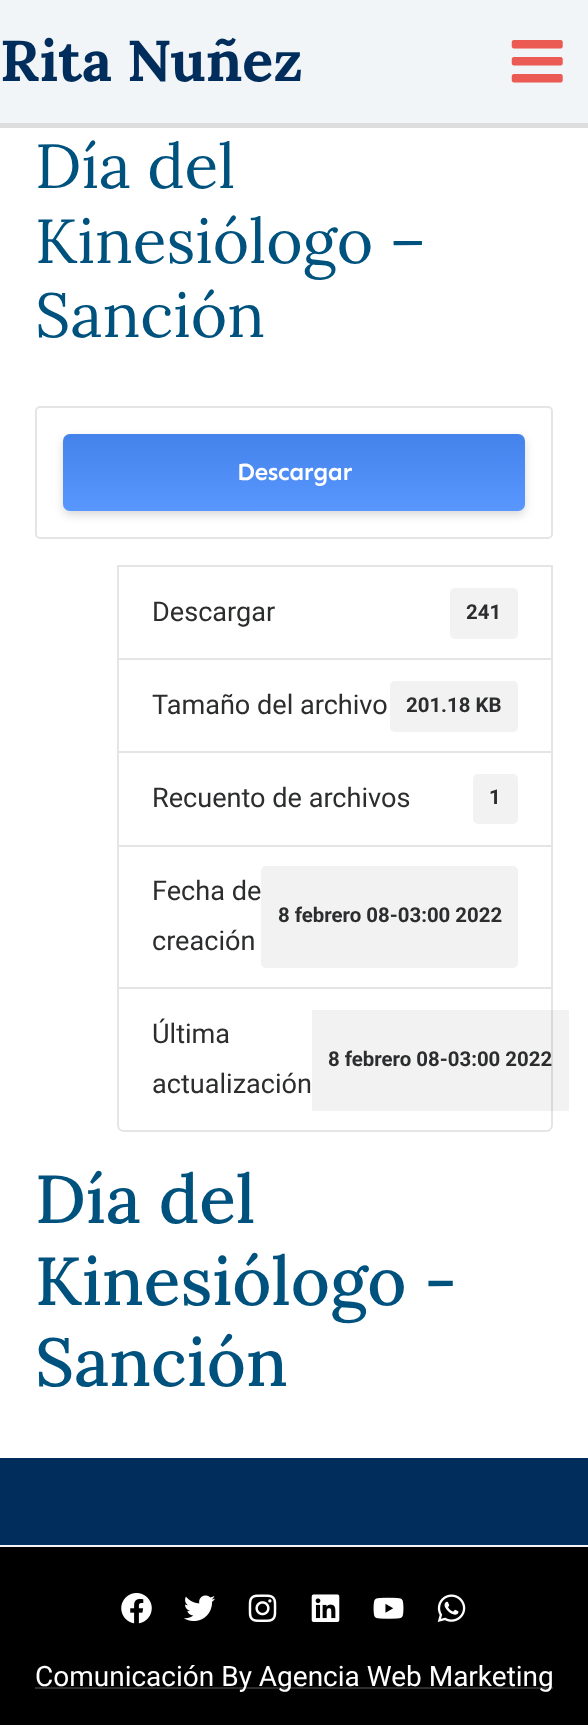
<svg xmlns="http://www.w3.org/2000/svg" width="588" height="1725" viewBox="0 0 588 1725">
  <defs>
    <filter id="blur1" x="-50%" y="-200%" width="200%" height="500%"><feGaussianBlur stdDeviation="5"/></filter>
    <linearGradient id="g1" gradientUnits="userSpaceOnUse" x1="294" y1="434" x2="294" y2="511"><stop offset="0" stop-color="#000000" stop-opacity="0.08"/><stop offset="1" stop-color="#ffffff" stop-opacity="0.08"/></linearGradient>
  </defs>
  <rect width="100%" height="100%" fill="#ffffff"/>
  <rect x="0" y="0" width="588" height="123" fill="#f2f5f7"/>
  <rect x="0" y="123" width="588" height="5" fill="#dddddd"/>
  <text x="0" y="81" font-family="Lora" font-size="57.5" font-weight="bold" fill="#002d5b">Rita Nuñez</text>
  <image x="511" y="40" width="52" height="43" href="img1.png"/>
  <text x="35" y="188" font-family="Lora" font-size="62.25" fill="#00527e">Día del</text>
  <text x="35" y="263" font-family="Lora" font-size="62.25" fill="#00527e">Kinesiólogo –</text>
  <text x="35" y="337" font-family="Lora" font-size="62.25" fill="#00527e">Sanción</text>
  <rect x="36" y="407" width="516" height="131" rx="4" fill="none" stroke="#e5e5e5" stroke-width="2"/>
  <rect x="63" y="438" width="462" height="77" rx="7" fill="#000000" fill-opacity="0.15" filter="url(#blur1)"/>
  <rect x="63" y="434" width="462" height="77" rx="7" fill="#4a8eff"/>
  <rect x="63" y="434" width="462" height="77" rx="7" fill="url(#g1)"/>
  <text x="237" y="480" font-family="Sen" font-size="24.5" font-weight="600" letter-spacing="-0.5" fill="#ffffff">Descargar</text>
  <rect x="118" y="566" width="434" height="93" fill="none" stroke="#e5e5e5" stroke-width="2"/>
  <text x="152" y="621" font-family="Roboto" font-size="27.1" fill="#2c2d2e">Descargar</text>
  <rect x="450" y="588" width="68" height="51" rx="5" fill="#f2f2f2"/>
  <text x="466" y="619" font-family="Roboto" font-size="20.4" font-weight="bold" fill="#2c2d2e">241</text>
  <rect x="118" y="659" width="434" height="93" fill="none" stroke="#e5e5e5" stroke-width="2"/>
  <text x="152" y="714" font-family="Roboto" font-size="27.1" fill="#2c2d2e">Tamaño del archivo</text>
  <rect x="390" y="681" width="128" height="51" rx="5" fill="#f2f2f2"/>
  <text x="406" y="712" font-family="Roboto" font-size="20.4" font-weight="bold" fill="#2c2d2e">201.18 KB</text>
  <rect x="118" y="752" width="434" height="94" fill="none" stroke="#e5e5e5" stroke-width="2"/>
  <text x="152" y="807" font-family="Roboto" font-size="27.1" fill="#2c2d2e">Recuento de archivos</text>
  <rect x="473" y="774" width="45" height="50" rx="5" fill="#f2f2f2"/>
  <text x="489" y="804" font-family="Roboto" font-size="20.4" font-weight="bold" fill="#2c2d2e">1</text>
  <rect x="118" y="846" width="434" height="142" fill="none" stroke="#e5e5e5" stroke-width="2"/>
  <text x="152" y="900" font-family="Roboto" font-size="27.1" fill="#2c2d2e">Fecha de</text>
  <rect x="261" y="866" width="257" height="102" rx="5" fill="#f2f2f2"/>
  <text x="278" y="922" font-family="Roboto" font-size="20.4" font-weight="bold" fill="#2c2d2e">8 febrero 08-03:00 2022</text>
  <text x="152" y="950" font-family="Roboto" font-size="27.1" fill="#2c2d2e">creación</text>
  <path d="M118 988H552V1125C552 1128.5 549.5 1131 546 1131H124C120.5 1131 118 1128.5 118 1125Z" fill="#ffffff" stroke="#e5e5e5" stroke-width="2"/>
  <text x="152" y="1043" font-family="Roboto" font-size="27.1" fill="#2c2d2e">Última</text>
  <rect x="312" y="1010" width="257" height="101" fill="#000000" fill-opacity="0.05"/>
  <text x="328" y="1066" font-family="Roboto" font-size="20.4" font-weight="bold" fill="#2c2d2e">8 febrero 08-03:00 2022</text>
  <text x="152" y="1093" font-family="Roboto" font-size="27.1" fill="#2c2d2e">actualización</text>
  <text x="35" y="1223" font-family="Lora" font-size="67.75" font-weight="500" fill="#00527e">Día del</text>
  <text x="35" y="1305" font-family="Lora" font-size="67.75" font-weight="500" fill="#00527e">Kinesiólogo -</text>
  <text x="35" y="1386" font-family="Lora" font-size="67.75" font-weight="500" fill="#00527e">Sanción</text>
  <rect x="0" y="1458" width="588" height="87" fill="#002d5b"/>
  <rect x="0" y="1547" width="588" height="178" fill="#000000"/>
  <rect x="0" y="1545" width="588" height="2" fill="#f2f5f7"/>
  <image x="121" y="1593" width="31" height="31" href="img2.png"/>
  <image x="184" y="1595" width="31" height="26" href="img3.png"/>
  <image x="248" y="1594" width="29" height="28" href="img4.png"/>
  <image x="311" y="1594" width="29" height="28" href="img5.png"/>
  <image x="373" y="1597" width="31" height="22" href="img6.png"/>
  <image x="437" y="1594" width="29" height="28" href="img7.png"/>
  <rect x="35" y="1687" width="518" height="2" fill="#2c2d2e"/>
  <text x="35" y="1686" font-family="Roboto" font-size="28" fill="#ffffff">Comunicación By Agencia Web Marketing</text>
</svg>
